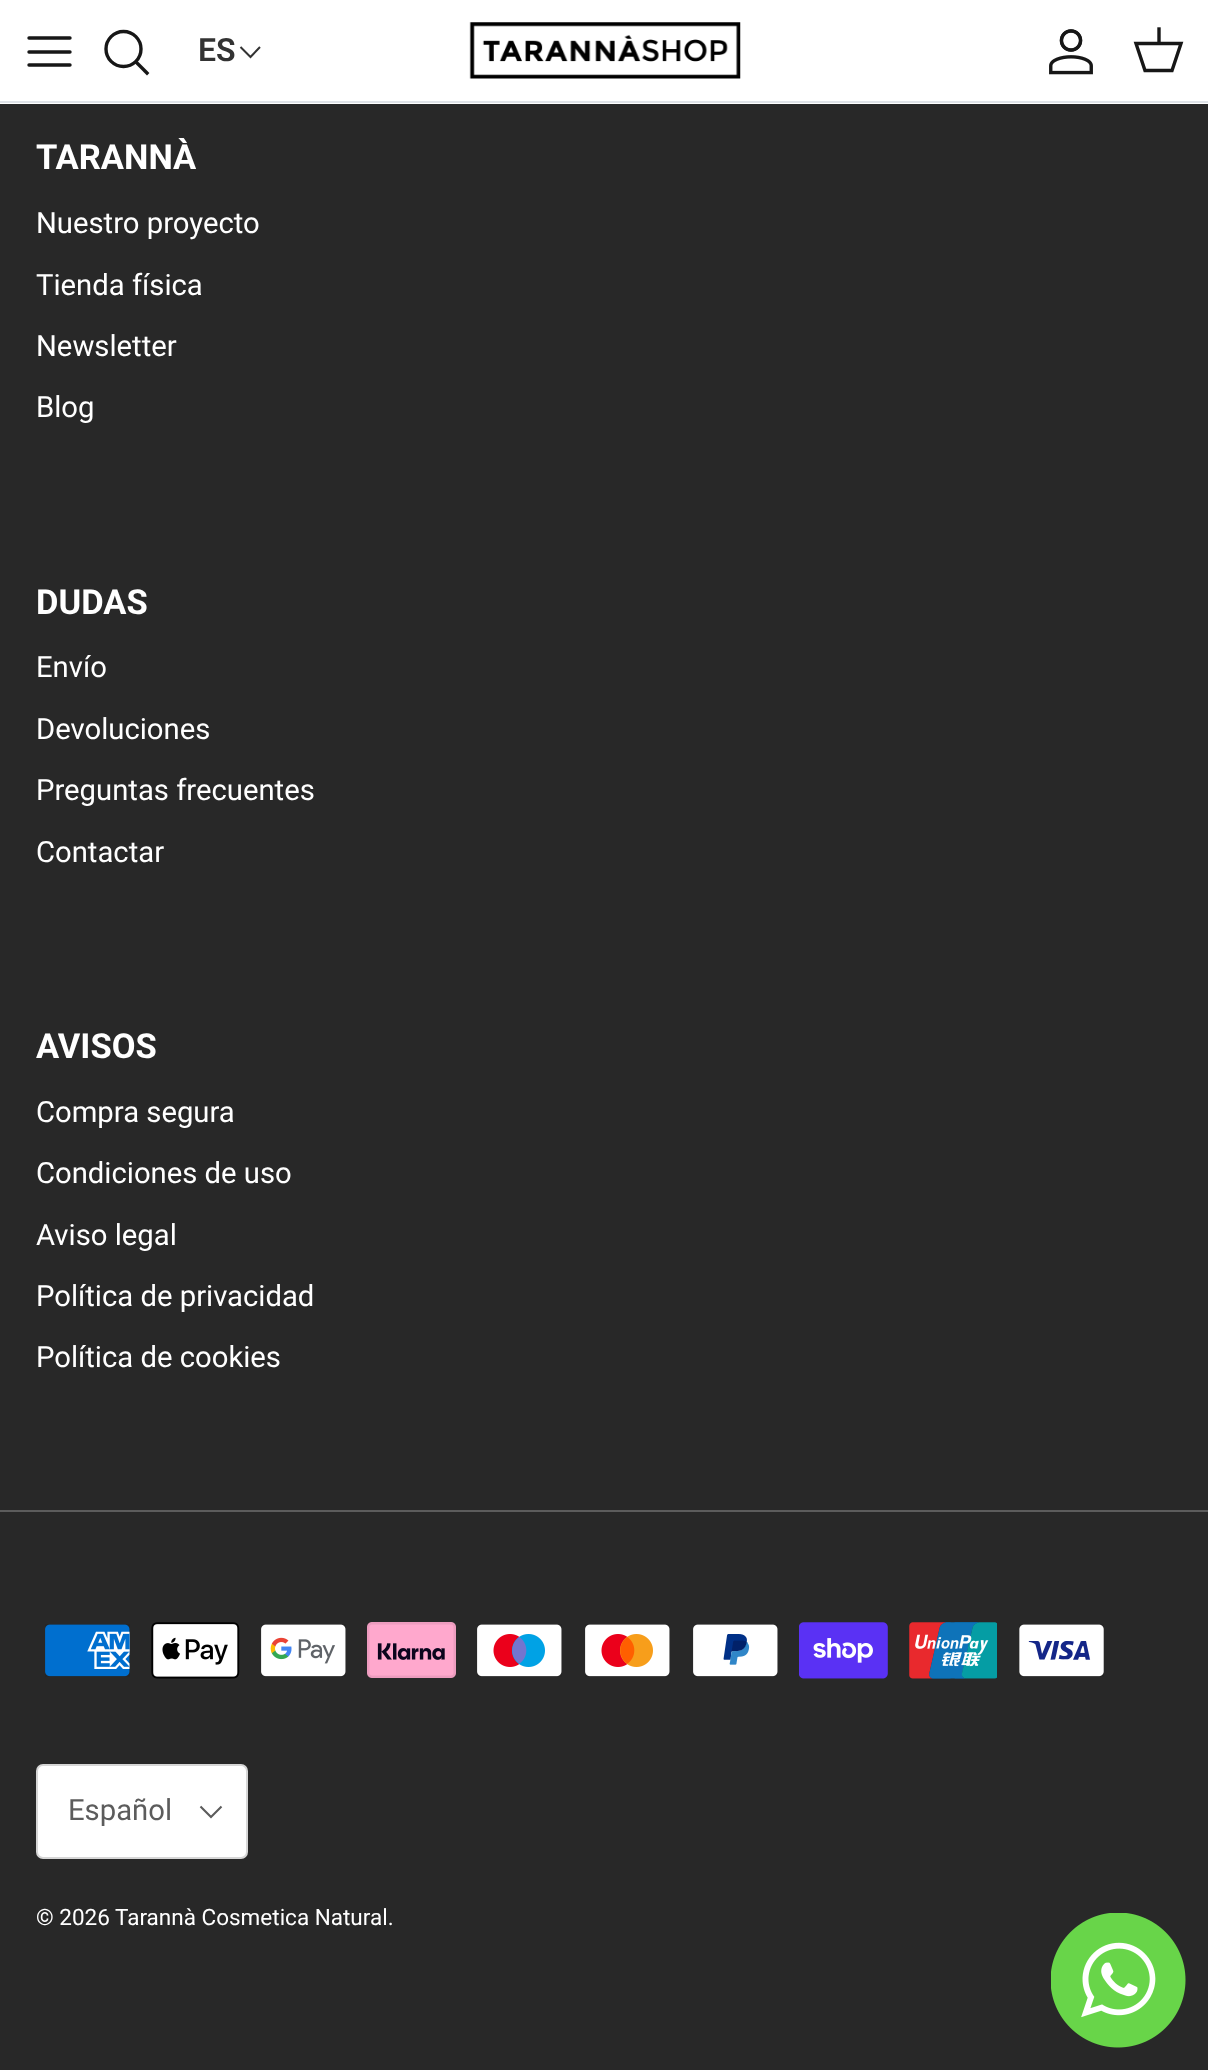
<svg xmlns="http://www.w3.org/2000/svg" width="1208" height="2070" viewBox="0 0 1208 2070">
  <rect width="100%" height="100%" fill="#282828"/>
  <rect x="0" y="0" width="1208" height="104" fill="#ffffff"/>
  <rect x="0" y="101" width="1208" height="2" fill="#dfe3e8"/>
  <path d="M29 52H70M29 38H70M29 65H70" fill="none" stroke="#171717" stroke-width="3.4" stroke-linecap="round" stroke-linejoin="round"/>
  <circle cx="123.5" cy="49" r="17.5" fill="none" stroke="#171717" stroke-width="3.4"/>
  <path d="M137 63L147 73" fill="none" stroke="#171717" stroke-width="3.4" stroke-linecap="square"/>
  <text x="198" y="61" font-family="Roboto" font-size="32" font-weight="600" fill="#333333">ES</text>
  <path d="M260 47L250.5 57L240.5 47" fill="none" stroke="#333333" stroke-width="2"/>
  <image x="469" y="22" width="272" height="57" href="img1.png"/>
  <image x="1049" y="29" width="44" height="46" href="img2.png"/>
  <path d="M1136 43.5H1181L1172 70.5H1145Z" fill="none" stroke="#171717" stroke-width="3.4"/>
  <path d="M1159 43V29" fill="none" stroke="#171717" stroke-width="3.4" stroke-linecap="square"/>
  <text x="36" y="169" font-family="Roboto" font-size="34.5" font-weight="bold" fill="#ffffff">TARANNÀ</text>
  <text x="36" y="233" font-family="Roboto" font-size="29.25" fill="#ffffff">Nuestro proyecto</text>
  <text x="36" y="295" font-family="Roboto" font-size="29.25" fill="#ffffff">Tienda física</text>
  <text x="36" y="356" font-family="Roboto" font-size="29.25" fill="#ffffff">Newsletter</text>
  <text x="36" y="417" font-family="Roboto" font-size="29.25" fill="#ffffff">Blog</text>
  <text x="36" y="614" font-family="Roboto" font-size="34.5" font-weight="bold" fill="#ffffff">DUDAS</text>
  <text x="36" y="677" font-family="Roboto" font-size="29.25" fill="#ffffff">Envío</text>
  <text x="36" y="739" font-family="Roboto" font-size="29.25" fill="#ffffff">Devoluciones</text>
  <text x="36" y="800" font-family="Roboto" font-size="29.25" fill="#ffffff">Preguntas frecuentes</text>
  <text x="36" y="862" font-family="Roboto" font-size="29.25" fill="#ffffff">Contactar</text>
  <text x="36" y="1058" font-family="Roboto" font-size="34.5" font-weight="bold" fill="#ffffff">AVISOS</text>
  <text x="36" y="1122" font-family="Roboto" font-size="29.25" fill="#ffffff">Compra segura</text>
  <text x="36" y="1183" font-family="Roboto" font-size="29.25" fill="#ffffff">Condiciones de uso</text>
  <text x="36" y="1245" font-family="Roboto" font-size="29.25" fill="#ffffff">Aviso legal</text>
  <text x="36" y="1306" font-family="Roboto" font-size="29.25" fill="#ffffff">Política de privacidad</text>
  <text x="36" y="1367" font-family="Roboto" font-size="29.25" fill="#ffffff">Política de cookies</text>
  <rect x="0" y="1510" width="1208" height="2" fill="#5c5c5c"/>
  <image x="45" y="1624" width="85" height="53" href="img3.png"/>
  <image x="151" y="1622" width="89" height="57" href="img4.png"/>
  <image x="261" y="1624" width="85" height="53" href="img5.png"/>
  <image x="367" y="1622" width="89" height="56" href="img6.png"/>
  <image x="477" y="1624" width="85" height="53" href="img7.png"/>
  <image x="585" y="1624" width="85" height="53" href="img8.png"/>
  <image x="693" y="1624" width="85" height="53" href="img9.png"/>
  <image x="799" y="1622" width="89" height="57" href="img10.png"/>
  <image x="909" y="1622" width="88" height="57" href="img11.png"/>
  <image x="1019" y="1624" width="85" height="53" href="img12.png"/>
  <rect x="37" y="1765" width="210" height="93" rx="6" fill="#ffffff" stroke="#d6d6d6" stroke-width="2"/>
  <text x="68" y="1820" font-family="Roboto" font-size="29.25" fill="#5c5c5c">Español</text>
  <path d="M221.5 1806.5L211 1817L200.5 1806.5" fill="none" stroke="#5c5c5c" stroke-width="2.1"/>
  <text x="36" y="1925" font-family="Roboto" font-size="22.5" fill="#ffffff">© 2026</text>
  <text x="115" y="1925" font-family="Roboto" font-size="22.5" fill="#ffffff">Tarannà Cosmetica Natural.</text>
  <image x="1051" y="1913" width="135" height="135" href="img13.png"/>
</svg>
